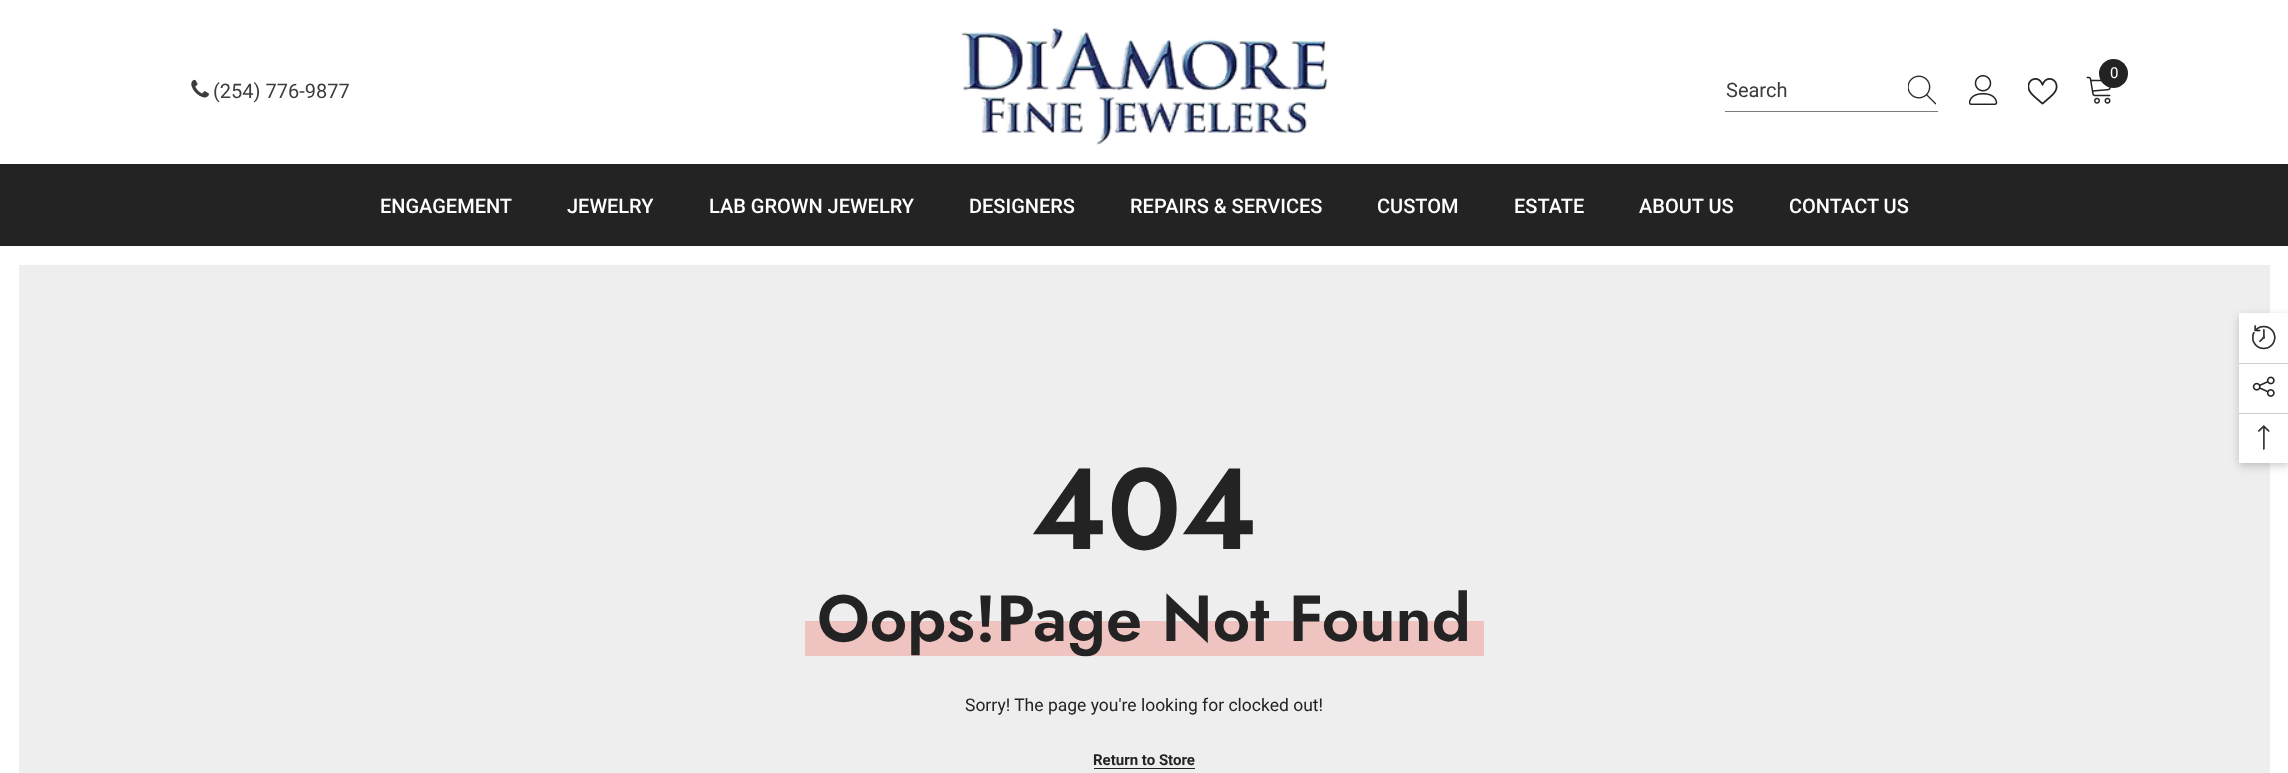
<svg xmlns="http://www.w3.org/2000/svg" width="2288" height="773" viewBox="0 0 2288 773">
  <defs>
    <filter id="blur1" x="-50%" y="-200%" width="200%" height="500%"><feGaussianBlur stdDeviation="4.5"/></filter>
  </defs>
  <rect width="100%" height="100%" fill="#ffffff"/>
  <image x="191" y="79" width="18" height="19" href="img1.png"/>
  <text x="213" y="98" font-family="Roboto" font-size="20" fill="#3c3c3c">(254) 776-9877</text>
  <image x="961" y="27" width="367" height="118" href="img2.png"/>
  <image x="2086" y="76" width="25" height="28" href="img3.png"/>
  <circle cx="2113.5" cy="73.5" r="14.5" fill="#232323"/>
  <text x="2110" y="78" font-family="Roboto" font-size="15" fill="#ffffff">0</text>
  <image x="1969" y="75" width="29" height="30" href="img4.png"/>
  <image x="2028" y="78" width="30" height="27" href="img5.png"/>
  <rect x="1725" y="111" width="213" height="1" fill="#7b7b7b"/>
  <text x="1726" y="97" font-family="Roboto" font-size="20" fill="#3c3c3c">Search</text>
  <image x="1908" y="75" width="28" height="30" href="img6.png"/>
  <rect x="0" y="164" width="2288" height="82" fill="#232323"/>
  <text x="380" y="213" font-family="Roboto" font-size="20" font-weight="500" fill="#ffffff">ENGAGEMENT</text>
  <text x="567" y="213" font-family="Roboto" font-size="20" font-weight="500" fill="#ffffff">JEWELRY</text>
  <text x="709" y="213" font-family="Roboto" font-size="20" font-weight="500" fill="#ffffff">LAB GROWN JEWELRY</text>
  <text x="969" y="213" font-family="Roboto" font-size="20" font-weight="500" fill="#ffffff">DESIGNERS</text>
  <text x="1130" y="213" font-family="Roboto" font-size="20" font-weight="500" fill="#ffffff">REPAIRS &amp; SERVICES</text>
  <text x="1377" y="213" font-family="Roboto" font-size="20" font-weight="500" fill="#ffffff">CUSTOM</text>
  <text x="1514" y="213" font-family="Roboto" font-size="20" font-weight="500" fill="#ffffff">ESTATE</text>
  <text x="1639" y="213" font-family="Roboto" font-size="20" font-weight="500" fill="#ffffff">ABOUT US</text>
  <text x="1789" y="213" font-family="Roboto" font-size="20" font-weight="500" fill="#ffffff">CONTACT US</text>
  <rect x="19" y="265" width="2251" height="508" fill="#eeeeee"/>
  <text x="1031" y="549" font-family="Jost" font-size="115" font-weight="600" fill="#232323">404</text>
  <rect x="805" y="621" width="679" height="35" fill="#efc3c0"/>
  <text x="817" y="641" font-family="Jost" font-size="65" font-weight="600" fill="#232323">Oops!Page Not Found</text>
  <text x="965" y="711" font-family="Roboto" font-size="17.5" fill="#232323">Sorry! The page you're looking for clocked out!</text>
  <text x="1093" y="765" font-family="Roboto" font-size="15" font-weight="bold" fill="#232323">Return to Store</text>
  <rect x="1094" y="768" width="101" height="1" fill="#232323"/>
  <rect x="2239" y="316" width="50" height="150" fill="#000000" fill-opacity="0.2" filter="url(#blur1)"/>
  <rect x="2239" y="313" width="49" height="150" fill="#ffffff"/>
  <image x="2252" y="325" width="24" height="25" href="img7.png"/>
  <rect x="2239" y="363" width="49" height="1" fill="#cccccc"/>
  <image x="2252" y="376" width="23" height="21" href="img8.png"/>
  <rect x="2239" y="413" width="49" height="1" fill="#cccccc"/>
  <image x="2258" y="425" width="12" height="25" href="img9.png"/>
</svg>
